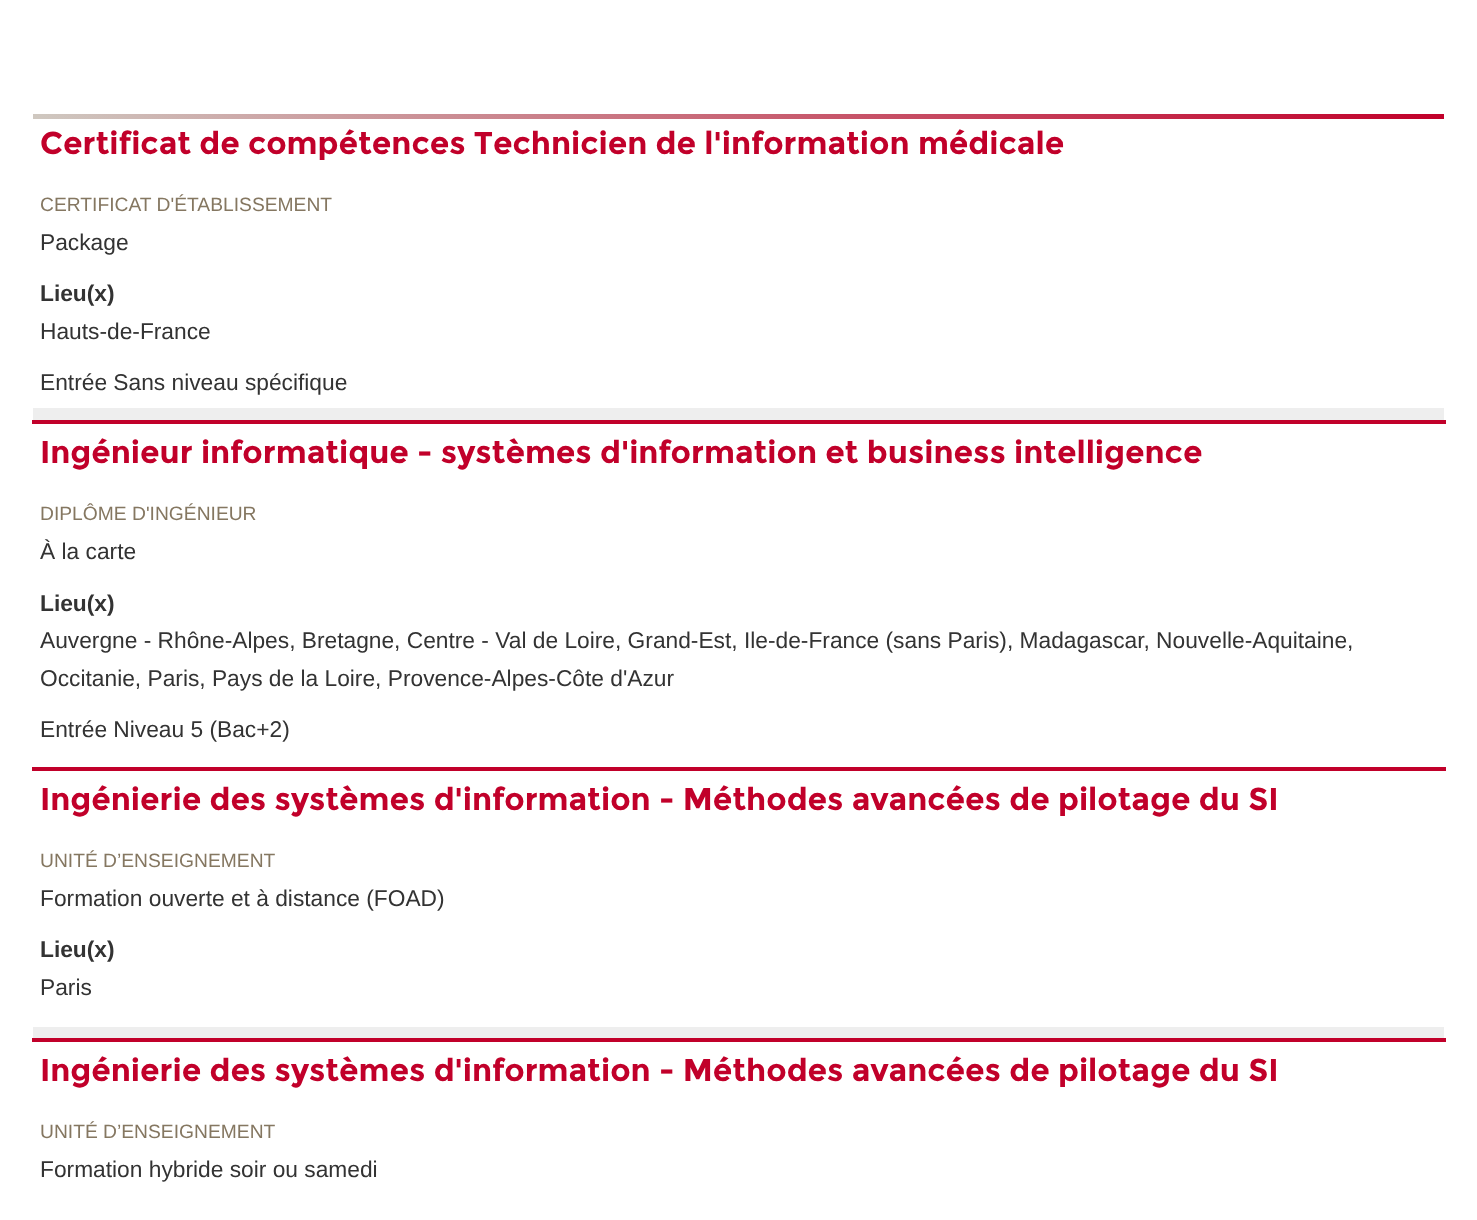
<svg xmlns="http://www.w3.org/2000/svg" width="1477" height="1220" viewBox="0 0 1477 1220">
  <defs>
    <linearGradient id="g1" gradientUnits="userSpaceOnUse" x1="33" y1="116" x2="1444" y2="116"><stop offset="0" stop-color="#cfc8c0"/><stop offset="1" stop-color="#c1002a"/></linearGradient>
  </defs>
  <rect width="100%" height="100%" fill="#ffffff"/>
  <rect x="33" y="114" width="1411" height="5" fill="url(#g1)"/>
  <rect x="33" y="408" width="1411" height="12" fill="#eeeeee"/>
  <rect x="32" y="420" width="1414" height="4" fill="#c1002a"/>
  <text x="40" y="154" font-family="Montserrat" font-size="31.5" font-weight="bold" fill="#c1002a">Certificat de compétences Technicien de l'information médicale</text>
  <text x="40" y="211" font-family="Liberation Sans" font-size="19.25" fill="#857761">CERTIFICAT D'ÉTABLISSEMENT</text>
  <text x="40" y="250" font-family="Liberation Sans" font-size="22.75" fill="#333333">Package</text>
  <text x="40" y="301" font-family="Liberation Sans" font-size="22.75" font-weight="bold" fill="#333333">Lieu(x)</text>
  <text x="40" y="339" font-family="Liberation Sans" font-size="22.75" fill="#333333">Hauts-de-France</text>
  <text x="40" y="390" font-family="Liberation Sans" font-size="22.75" fill="#333333">Entrée Sans niveau spécifique</text>
  <rect x="32" y="767" width="1414" height="4" fill="#c1002a"/>
  <text x="40" y="463" font-family="Montserrat" font-size="31.5" font-weight="bold" fill="#c1002a">Ingénieur informatique - systèmes d'information et business intelligence</text>
  <text x="40" y="520" font-family="Liberation Sans" font-size="19.25" fill="#857761">DIPLÔME D'INGÉNIEUR</text>
  <text x="40" y="559" font-family="Liberation Sans" font-size="22.75" fill="#333333">À la carte</text>
  <text x="40" y="611" font-family="Liberation Sans" font-size="22.75" font-weight="bold" fill="#333333">Lieu(x)</text>
  <text x="40" y="648" font-family="Liberation Sans" font-size="22.75" fill="#333333">Auvergne - Rhône-Alpes, Bretagne, Centre - Val de Loire, Grand-Est, Ile-de-France (sans Paris), Madagascar, Nouvelle-Aquitaine,</text>
  <text x="40" y="686" font-family="Liberation Sans" font-size="22.75" fill="#333333">Occitanie, Paris, Pays de la Loire, Provence-Alpes-Côte d'Azur</text>
  <text x="40" y="737" font-family="Liberation Sans" font-size="22.75" fill="#333333">Entrée Niveau 5 (Bac+2)</text>
  <rect x="33" y="1027" width="1411" height="11" fill="#eeeeee"/>
  <rect x="32" y="1038" width="1414" height="4" fill="#c1002a"/>
  <text x="40" y="810" font-family="Montserrat" font-size="31.5" font-weight="bold" fill="#c1002a">Ingénierie des systèmes d'information - Méthodes avancées de pilotage du SI</text>
  <text x="40" y="867" font-family="Liberation Sans" font-size="19.25" fill="#857761">UNITÉ D’ENSEIGNEMENT</text>
  <text x="40" y="906" font-family="Liberation Sans" font-size="22.75" fill="#333333">Formation ouverte et à distance (FOAD)</text>
  <text x="40" y="957" font-family="Liberation Sans" font-size="22.75" font-weight="bold" fill="#333333">Lieu(x)</text>
  <text x="40" y="995" font-family="Liberation Sans" font-size="22.75" fill="#333333">Paris</text>
  <text x="40" y="1081" font-family="Montserrat" font-size="31.5" font-weight="bold" fill="#c1002a">Ingénierie des systèmes d'information - Méthodes avancées de pilotage du SI</text>
  <text x="40" y="1138" font-family="Liberation Sans" font-size="19.25" fill="#857761">UNITÉ D’ENSEIGNEMENT</text>
  <text x="40" y="1177" font-family="Liberation Sans" font-size="22.75" fill="#333333">Formation hybride soir ou samedi</text>
</svg>
